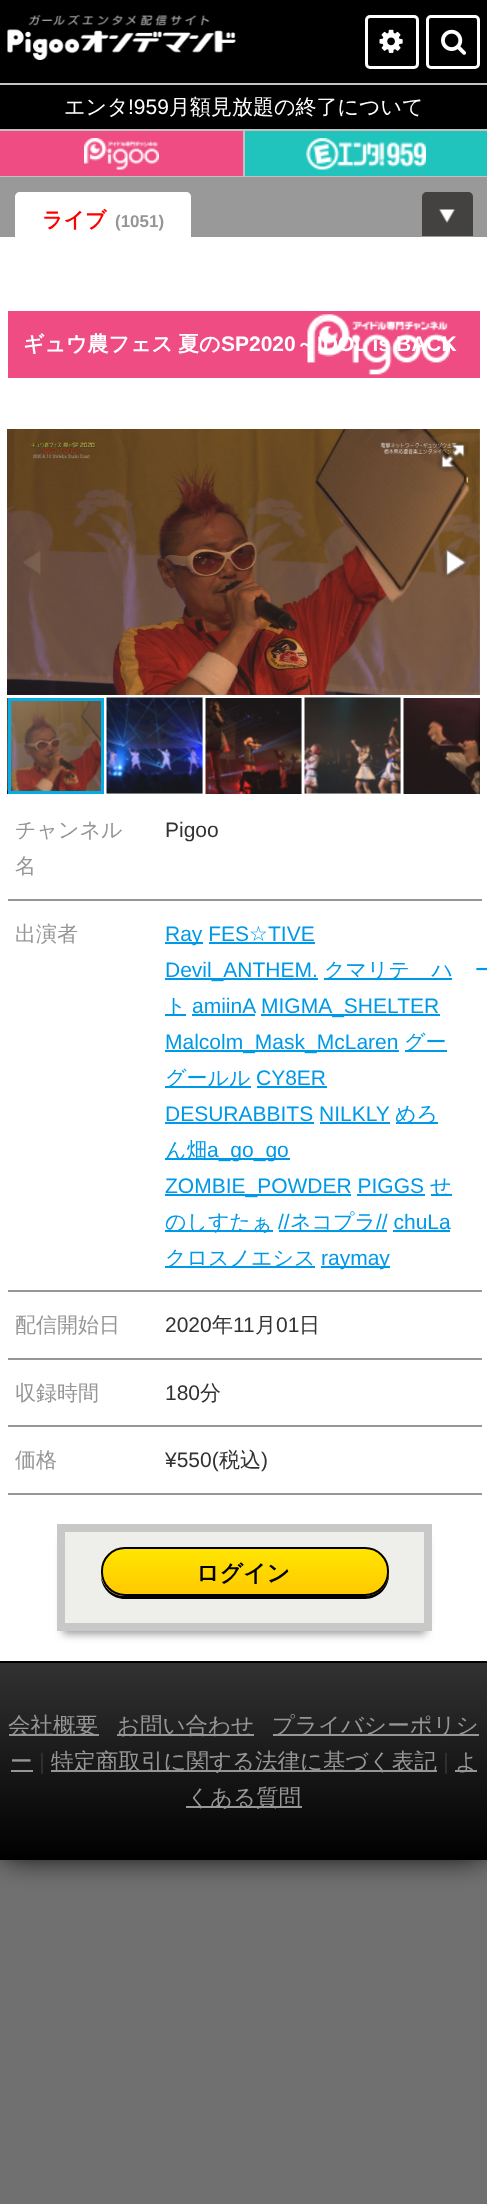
<svg xmlns="http://www.w3.org/2000/svg" width="487" height="2204" viewBox="0 0 487 2204">
  <defs>
    <filter id="blur1" x="-50%" y="-200%" width="200%" height="500%"><feGaussianBlur stdDeviation="15"/></filter>
    <radialGradient id="g1" gradientUnits="userSpaceOnUse" cx="0" cy="0" r="1" gradientTransform="matrix(7.5 0 0 51 480 746)"><stop offset="0" stop-color="#000000" stop-opacity="0.4"/><stop offset="1" stop-color="#000000" stop-opacity="0"/></radialGradient>
    <linearGradient id="g2" gradientUnits="userSpaceOnUse" x1="479" y1="695" x2="479" y2="797"><stop offset="0" stop-color="#000000" stop-opacity="0"/><stop offset="0.25" stop-color="#000000" stop-opacity="0.2"/><stop offset="0.75" stop-color="#000000" stop-opacity="0.3"/><stop offset="1" stop-color="#000000" stop-opacity="0"/></linearGradient>
    <filter id="blur2" x="-50%" y="-200%" width="200%" height="500%"><feGaussianBlur stdDeviation="4.5"/></filter>
    <clipPath id="clip1"><rect x="101" y="1547" width="288" height="49" rx="24"/></clipPath>
    <linearGradient id="g3" gradientUnits="userSpaceOnUse" x1="245" y1="1548" x2="245" y2="1595"><stop offset="0" stop-color="#ffe600"/><stop offset="1" stop-color="#ffc800"/></linearGradient>
    <linearGradient id="g4" gradientUnits="userSpaceOnUse" x1="0" y1="1662" x2="0" y2="1860"><stop offset="0" stop-color="#323232"/><stop offset="1" stop-color="#000000"/></linearGradient>
  </defs>
  <rect width="100%" height="100%" fill="#707070"/>
  <rect x="0" y="3" width="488" height="1854" rx="15" fill="#000000" filter="url(#blur1)"/>
  <rect x="0" y="237" width="487" height="1424" fill="#ffffff"/>
  <rect x="0" y="0" width="487" height="83" fill="#000000"/>
  <image x="7" y="15" width="229" height="45" href="img1.png"/>
  <rect x="366.5" y="16.5" width="51" height="51" rx="3.5" fill="none" stroke="#ffffff" stroke-width="3"/>
  <image x="379" y="29" width="24" height="24" href="img2.png"/>
  <rect x="427.5" y="16.5" width="51" height="51" rx="3.5" fill="none" stroke="#ffffff" stroke-width="3"/>
  <image x="441" y="29" width="25" height="26" href="img3.png"/>
  <rect x="0" y="85" width="487" height="44" fill="#000000"/>
  <rect x="0" y="83" width="487" height="2" fill="#c5c1c0"/>
  <text x="64" y="114" font-family="WenQuanYi Zen Hei" font-size="21" font-weight="500" fill="#ffffff">エンタ</text>
  <text x="128" y="114" font-family="Liberation Sans" font-size="21" fill="#ffffff">!959</text>
  <text x="169" y="114" font-family="WenQuanYi Zen Hei" font-size="21" font-weight="500" fill="#ffffff">月額見放題の終了について</text>
  <rect x="0" y="129" width="487" height="2" fill="#c5c1c0"/>
  <rect x="0" y="131" width="243" height="45" fill="#ee4c82"/>
  <rect x="243" y="131" width="2" height="46" fill="#c5c1c0"/>
  <rect x="0" y="176" width="487" height="1" fill="#c5c1c0"/>
  <image x="84" y="138" width="75" height="32" href="img4.png"/>
  <rect x="245" y="131" width="242" height="45" fill="#20c4bd"/>
  <image x="306" y="138" width="120" height="32" href="img5.png"/>
  <rect x="0" y="177" width="487" height="60" fill="#999999"/>
  <path d="M20 192H186C189 192 191 194 191 197V248H15V197C15 194 17 192 20 192Z" fill="#ffffff"/>
  <text x="42" y="227" font-family="WenQuanYi Zen Hei" font-size="21" font-weight="bold" fill="#ff0000">ライブ</text>
  <text x="115" y="227" font-family="Liberation Sans" font-size="17" font-weight="bold" fill="#969696">(1051)</text>
  <path d="M427 192H468C471 192 473 194 473 197V236H422V197C422 194 424 192 427 192Z" fill="#434241"/>
  <image x="439" y="209" width="16" height="14" href="img6.png"/>
  <rect x="8" y="311" width="472" height="67" fill="#ee4c82"/>
  <image x="307" y="314" width="143" height="61" href="img7.png"/>
  <text x="23" y="351" font-family="WenQuanYi Zen Hei" font-size="21" font-weight="bold" fill="#ffffff">ギュウ農フェス</text>
  <text x="178" y="351" font-family="WenQuanYi Zen Hei" font-size="21" font-weight="bold" fill="#ffffff">夏の</text>
  <text x="221" y="351" font-family="Liberation Sans" font-size="21" font-weight="bold" fill="#ffffff">SP2020</text>
  <text x="296" y="351" font-family="WenQuanYi Zen Hei" font-size="21" font-weight="bold" fill="#ffffff">～</text>
  <text x="317" y="351" font-family="Liberation Sans" font-size="21" font-weight="bold" fill="#ffffff">IDOL is BACK</text>
  <image x="7" y="429" width="473" height="266" href="img8.png"/>
  <image x="437" y="440" width="32" height="32" href="img9.png"/>
  <image x="23" y="550" width="18" height="25" href="img10.png"/>
  <image x="441" y="547" width="27" height="31" href="img11.png"/>
  <image x="403" y="698" width="77" height="96" href="img16.png"/>
  <rect x="473" y="695" width="7" height="102" fill="url(#g1)"/>
  <rect x="479" y="695" width="1" height="102" fill="url(#g2)"/>
  <image x="7" y="698" width="94" height="96" href="img12.png"/>
  <rect x="107" y="698" width="96" height="96" fill="#e5e5e5"/>
  <image x="106" y="697" width="97" height="97" href="img13.png"/>
  <rect x="305" y="698" width="96" height="96" fill="#e5e5e5"/>
  <image x="304" y="697" width="97" height="97" href="img14.png"/>
  <rect x="9.5" y="699.5" width="93" height="93" fill="none" stroke="#00afea" stroke-width="3"/>
  <rect x="301" y="698" width="1" height="96" fill="#e5e5e5"/>
  <image x="205" y="698" width="97" height="96" href="img15.png"/>
  <text x="15" y="837" font-family="WenQuanYi Zen Hei" font-size="21" font-weight="500" fill="#969696">チャンネル</text>
  <text x="15" y="873" font-family="WenQuanYi Zen Hei" font-size="21" font-weight="500" fill="#969696">名</text>
  <rect x="8" y="899" width="474" height="2" fill="#969696"/>
  <text x="165" y="837" font-family="Liberation Sans" font-size="21" fill="#323232">Pigoo</text>
  <text x="15" y="941" font-family="WenQuanYi Zen Hei" font-size="21" font-weight="500" fill="#969696">出演者</text>
  <rect x="8" y="1290" width="474" height="2" fill="#969696"/>
  <rect x="165" y="942" width="38" height="2" fill="#0099e8"/>
  <text x="165" y="941" font-family="Liberation Sans" font-size="21" fill="#0099e8">Ray FES</text>
  <text x="249" y="941" font-family="DejaVu Sans" font-size="21" fill="#0099e8">☆</text>
  <rect x="209" y="942" width="106" height="2" fill="#0099e8"/>
  <text x="268" y="941" font-family="Liberation Sans" font-size="21" fill="#0099e8">TIVE</text>
  <rect x="165" y="978" width="153" height="2" fill="#0099e8"/>
  <text x="165" y="977" font-family="Liberation Sans" font-size="21" fill="#0099e8">Devil_ANTHEM.</text>
  <rect x="324" y="978" width="128" height="2" fill="#0099e8"/>
  <text x="324" y="977" font-family="WenQuanYi Zen Hei" font-size="21" font-weight="500" fill="#0099e8">クマリデパー</text>
  <rect x="165" y="1014" width="21" height="2" fill="#0099e8"/>
  <text x="165" y="1013" font-family="WenQuanYi Zen Hei" font-size="21" font-weight="500" fill="#0099e8">ト</text>
  <text x="192" y="1013" font-family="Liberation Sans" font-size="21" fill="#0099e8">amiinA</text>
  <rect x="192" y="1014" width="63" height="2" fill="#0099e8"/>
  <rect x="261" y="1014" width="179" height="2" fill="#0099e8"/>
  <text x="261" y="1013" font-family="Liberation Sans" font-size="21" fill="#0099e8">MIGMA_SHELTER</text>
  <rect x="165" y="1050" width="234" height="2" fill="#0099e8"/>
  <text x="165" y="1049" font-family="Liberation Sans" font-size="21" fill="#0099e8">Malcolm_Mask_McLaren</text>
  <rect x="405" y="1050" width="42" height="2" fill="#0099e8"/>
  <text x="404" y="1049" font-family="WenQuanYi Zen Hei" font-size="21" font-weight="500" fill="#0099e8">グー</text>
  <rect x="165" y="1086" width="86" height="2" fill="#0099e8"/>
  <text x="165" y="1085" font-family="WenQuanYi Zen Hei" font-size="21" font-weight="500" fill="#0099e8">グールル</text>
  <text x="256" y="1085" font-family="Liberation Sans" font-size="21" fill="#0099e8">CY8ER</text>
  <rect x="257" y="1086" width="70" height="2" fill="#0099e8"/>
  <text x="165" y="1121" font-family="Liberation Sans" font-size="21" fill="#0099e8">DESURABBITS NILKLY</text>
  <rect x="165" y="1122" width="149" height="2" fill="#0099e8"/>
  <rect x="396" y="1122" width="42" height="2" fill="#0099e8"/>
  <text x="395" y="1121" font-family="WenQuanYi Zen Hei" font-size="21" font-weight="500" fill="#0099e8">めろ</text>
  <rect x="320" y="1122" width="70" height="2" fill="#0099e8"/>
  <rect x="165" y="1158" width="125" height="2" fill="#0099e8"/>
  <text x="165" y="1157" font-family="WenQuanYi Zen Hei" font-size="21" font-weight="500" fill="#0099e8">ん畑</text>
  <text x="207" y="1157" font-family="Liberation Sans" font-size="21" fill="#0099e8">a_go_go</text>
  <rect x="165" y="1194" width="186" height="2" fill="#0099e8"/>
  <text x="165" y="1193" font-family="Liberation Sans" font-size="21" fill="#0099e8">ZOMBIE_POWDER PIGGS</text>
  <rect x="431" y="1194" width="21" height="2" fill="#0099e8"/>
  <text x="430" y="1193" font-family="WenQuanYi Zen Hei" font-size="21" font-weight="500" fill="#0099e8">せ</text>
  <rect x="357" y="1194" width="68" height="2" fill="#0099e8"/>
  <rect x="165" y="1230" width="108" height="2" fill="#0099e8"/>
  <text x="165" y="1229" font-family="WenQuanYi Zen Hei" font-size="21" font-weight="500" fill="#0099e8">のしすたぁ</text>
  <text x="278" y="1229" font-family="Liberation Sans" font-size="21" fill="#0099e8">//</text>
  <rect x="279" y="1230" width="108" height="2" fill="#0099e8"/>
  <text x="290" y="1229" font-family="WenQuanYi Zen Hei" font-size="21" font-weight="500" fill="#0099e8">ネコプラ</text>
  <text x="376" y="1229" font-family="Liberation Sans" font-size="21" fill="#0099e8">// chuLa</text>
  <rect x="393" y="1230" width="57" height="2" fill="#0099e8"/>
  <rect x="165" y="1266" width="150" height="2" fill="#0099e8"/>
  <text x="165" y="1265" font-family="WenQuanYi Zen Hei" font-size="21" font-weight="500" fill="#0099e8">クロスノエシス</text>
  <rect x="321" y="1266" width="69" height="2" fill="#0099e8"/>
  <text x="321" y="1265" font-family="Liberation Sans" font-size="21" fill="#0099e8">raymay</text>
  <text x="15" y="1332" font-family="WenQuanYi Zen Hei" font-size="21" font-weight="500" fill="#969696">配信開始日</text>
  <rect x="8" y="1358" width="474" height="2" fill="#969696"/>
  <text x="165" y="1332" font-family="Liberation Sans" font-size="21" fill="#323232">2020</text>
  <text x="212" y="1332" font-family="WenQuanYi Zen Hei" font-size="21" font-weight="500" fill="#323232">年</text>
  <text x="233" y="1332" font-family="Liberation Sans" font-size="21" fill="#323232">11</text>
  <text x="255" y="1332" font-family="WenQuanYi Zen Hei" font-size="21" font-weight="500" fill="#323232">月</text>
  <text x="276" y="1332" font-family="Liberation Sans" font-size="21" fill="#323232">01</text>
  <text x="299" y="1332" font-family="WenQuanYi Zen Hei" font-size="21" font-weight="500" fill="#323232">日</text>
  <text x="15" y="1400" font-family="WenQuanYi Zen Hei" font-size="21" font-weight="500" fill="#969696">収録時間</text>
  <rect x="8" y="1425" width="474" height="2" fill="#969696"/>
  <text x="165" y="1400" font-family="Liberation Sans" font-size="21" fill="#323232">180</text>
  <text x="200" y="1400" font-family="WenQuanYi Zen Hei" font-size="21" font-weight="500" fill="#323232">分</text>
  <text x="15" y="1467" font-family="WenQuanYi Zen Hei" font-size="21" font-weight="500" fill="#969696">価格</text>
  <rect x="8" y="1493" width="474" height="2" fill="#969696"/>
  <text x="165" y="1467" font-family="Liberation Sans" font-size="21" fill="#323232">¥550(</text>
  <text x="219" y="1467" font-family="WenQuanYi Zen Hei" font-size="21" font-weight="500" fill="#323232">税込</text>
  <text x="261" y="1467" font-family="Liberation Sans" font-size="21" fill="#323232">)</text>
  <rect x="63" y="1539" width="363" height="95" fill="#999999" filter="url(#blur2)"/>
  <rect x="61" y="1528" width="367" height="99" fill="#eeeeeb" stroke="#c8c8c8" stroke-width="8"/>
  <path d="M101 1577C102 1590 113 1599 125 1599H365C378 1599 389 1588 389 1575L388 1569V1572C388 1585 378 1596 364 1596H124C113 1596 104 1588 101 1577Z" fill="#000000"/>
  <g clip-path="url(#clip1)">
    <rect x="101" y="1548" width="288" height="47" fill="url(#g3)"/>
  </g>
  <rect x="102" y="1548" width="286" height="47" rx="23" fill="none" stroke="#000000" stroke-width="2"/>
  <text x="196" y="1581" font-family="WenQuanYi Zen Hei" font-size="23" font-weight="bold" fill="#000000">ログイン</text>
  <rect x="0" y="1663" width="487" height="197" fill="url(#g4)"/>
  <rect x="0" y="1661" width="487" height="2" fill="#000000"/>
  <rect x="9" y="1734" width="90" height="2" fill="#969696"/>
  <text x="8" y="1733" font-family="WenQuanYi Zen Hei" font-size="22.5" font-weight="500" fill="#969696">会社概要</text>
  <rect x="117" y="1734" width="137" height="2" fill="#969696"/>
  <text x="117" y="1733" font-family="WenQuanYi Zen Hei" font-size="22.5" font-weight="500" fill="#969696">お問い合わせ</text>
  <rect x="273" y="1734" width="206" height="2" fill="#969696"/>
  <text x="272" y="1733" font-family="WenQuanYi Zen Hei" font-size="22.5" font-weight="500" fill="#969696">プライバシーポリシ</text>
  <text x="10" y="1769" font-family="WenQuanYi Zen Hei" font-size="22.5" font-weight="500" fill="#969696">ー</text>
  <rect x="11" y="1770" width="22" height="2" fill="#969696"/>
  <text x="39" y="1769" font-family="Liberation Sans" font-size="22.5" fill="#323232">|</text>
  <rect x="51" y="1770" width="386" height="2" fill="#969696"/>
  <text x="51" y="1769" font-family="WenQuanYi Zen Hei" font-size="22.5" font-weight="500" fill="#969696">特定商取引に関する法律に基づく表記</text>
  <text x="443" y="1769" font-family="Liberation Sans" font-size="22.5" fill="#323232">|</text>
  <rect x="455" y="1770" width="22" height="2" fill="#969696"/>
  <text x="455" y="1769" font-family="WenQuanYi Zen Hei" font-size="22.5" font-weight="500" fill="#969696">よ</text>
  <rect x="186" y="1806" width="116" height="2" fill="#969696"/>
  <text x="187" y="1805" font-family="WenQuanYi Zen Hei" font-size="22.5" font-weight="500" fill="#969696">くある質問</text>
</svg>
